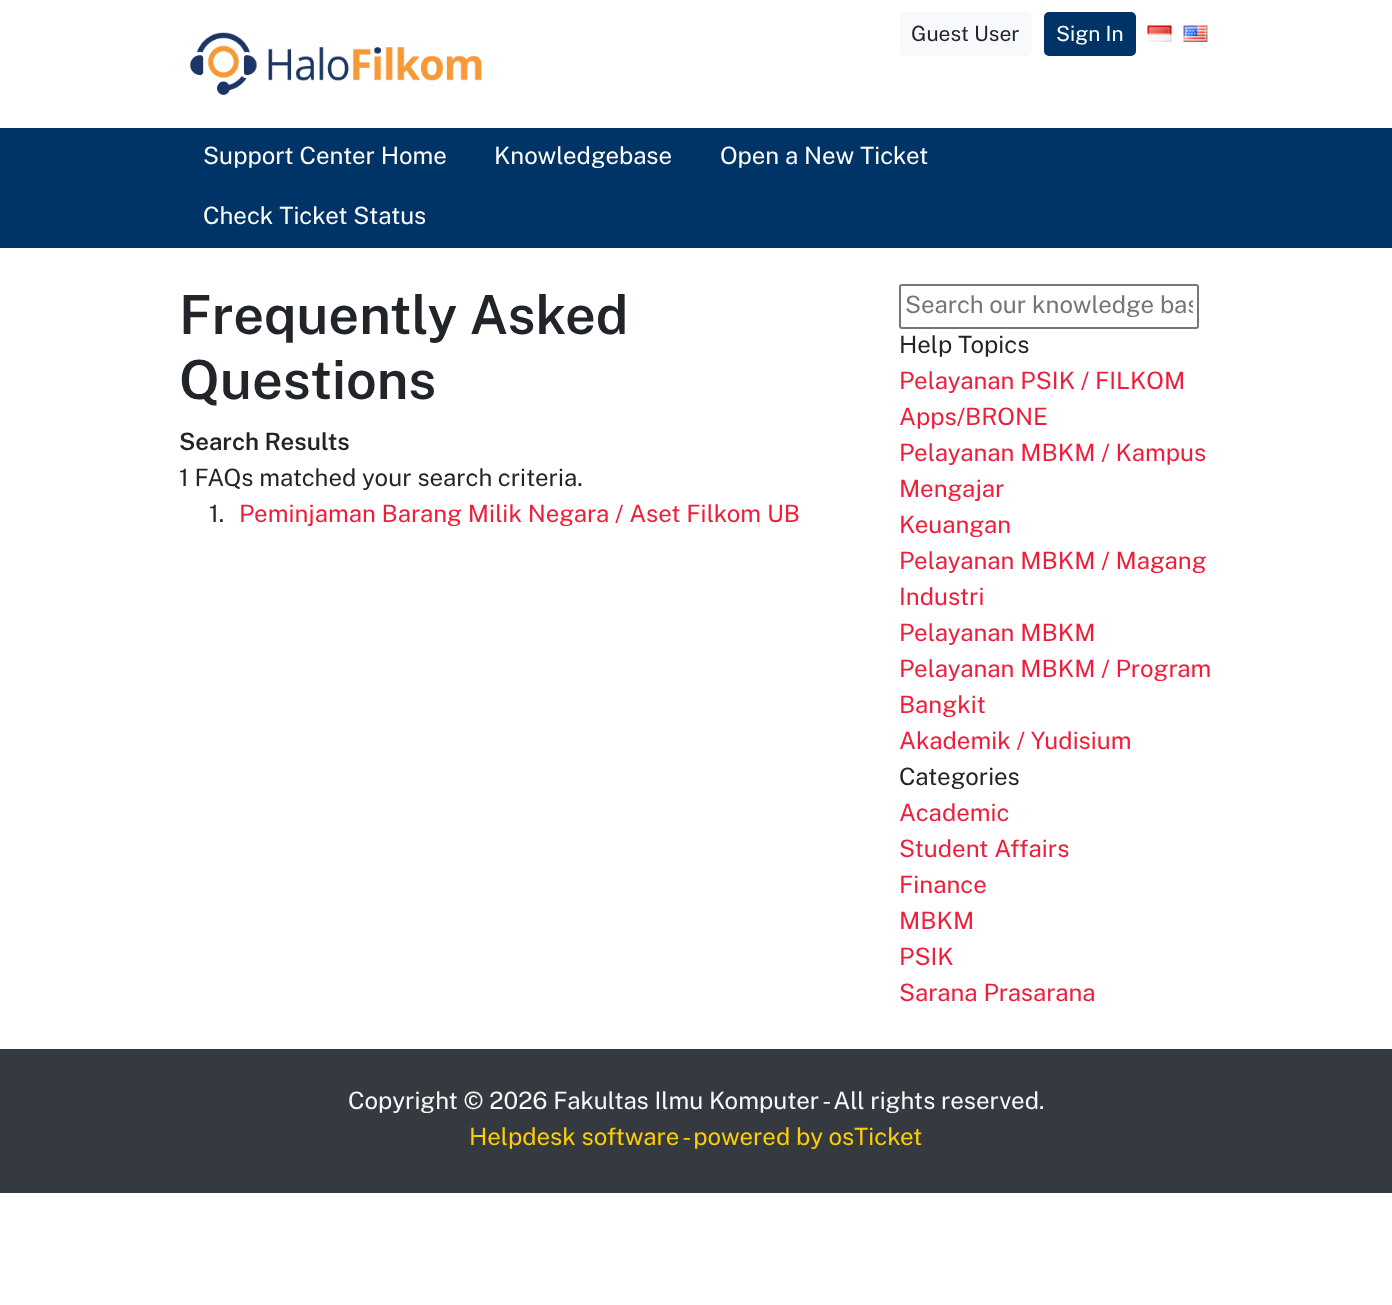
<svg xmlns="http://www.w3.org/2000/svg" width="1392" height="1305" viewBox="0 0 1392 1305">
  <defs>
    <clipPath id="clip1"><rect x="905" y="291" width="288" height="29"/></clipPath>
  </defs>
  <rect width="100%" height="100%" fill="#ffffff"/>
  <image x="190" y="32" width="292" height="63" href="img1.png"/>
  <rect x="900" y="12" width="132" height="44" rx="5" fill="#f8f9fa"/>
  <text x="911" y="41" font-family="Public Sans" font-size="21" fill="#212529">Guest User</text>
  <rect x="1044" y="12" width="92" height="44" rx="5" fill="#003366"/>
  <text x="1056" y="41" font-family="Public Sans" font-size="21" fill="#ffffff">Sign In</text>
  <image x="1147" y="25" width="25" height="17" href="img2.png"/>
  <image x="1183" y="25" width="25" height="17" href="img3.png"/>
  <rect x="0" y="128" width="1392" height="120" fill="#003366"/>
  <text x="203" y="164" font-family="Public Sans" font-size="24" fill="#ffffff">Support Center Home</text>
  <text x="494" y="164" font-family="Public Sans" font-size="24" fill="#ffffff">Knowledgebase</text>
  <text x="720" y="164" font-family="Public Sans" font-size="24" fill="#ffffff">Open a New Ticket</text>
  <text x="203" y="224" font-family="Public Sans" font-size="24" fill="#ffffff">Check Ticket Status</text>
  <text x="179" y="334" font-family="Public Sans" font-size="54" font-weight="600" fill="#212529">Frequently Asked</text>
  <text x="179" y="399" font-family="Public Sans" font-size="54" font-weight="600" fill="#212529">Questions</text>
  <text x="179" y="450" font-family="Public Sans" font-size="24" font-weight="600" fill="#212529">Search Results</text>
  <text x="179" y="486" font-family="Public Sans" font-size="24" fill="#212529">1 FAQs matched your search criteria.</text>
  <text x="209" y="522" font-family="Public Sans" font-size="24" fill="#212529">1.</text>
  <text x="239" y="522" font-family="Public Sans" font-size="24" fill="#ee1d3a">Peminjaman Barang Milik Negara / Aset Filkom UB</text>
  <rect x="900" y="285" width="298" height="43" rx="2" fill="none" stroke="#767676" stroke-width="2"/>
  <g clip-path="url(#clip1)">
    <text x="905" y="313" font-family="Public Sans" font-size="24" fill="#757575">Search our knowledge bas</text>
  </g>
  <text x="899" y="353" font-family="Public Sans" font-size="24" fill="#212529">Help Topics</text>
  <text x="899" y="389" font-family="Public Sans" font-size="24" fill="#ee1d3a">Pelayanan PSIK / FILKOM</text>
  <text x="899" y="425" font-family="Public Sans" font-size="24" fill="#ee1d3a">Apps/BRONE</text>
  <text x="899" y="461" font-family="Public Sans" font-size="24" fill="#ee1d3a">Pelayanan MBKM / Kampus</text>
  <text x="899" y="497" font-family="Public Sans" font-size="24" fill="#ee1d3a">Mengajar</text>
  <text x="899" y="533" font-family="Public Sans" font-size="24" fill="#ee1d3a">Keuangan</text>
  <text x="899" y="569" font-family="Public Sans" font-size="24" fill="#ee1d3a">Pelayanan MBKM / Magang</text>
  <text x="899" y="605" font-family="Public Sans" font-size="24" fill="#ee1d3a">Industri</text>
  <text x="899" y="641" font-family="Public Sans" font-size="24" fill="#ee1d3a">Pelayanan MBKM</text>
  <text x="899" y="677" font-family="Public Sans" font-size="24" fill="#ee1d3a">Pelayanan MBKM / Program</text>
  <text x="899" y="713" font-family="Public Sans" font-size="24" fill="#ee1d3a">Bangkit</text>
  <text x="899" y="749" font-family="Public Sans" font-size="24" fill="#ee1d3a">Akademik / Yudisium</text>
  <text x="899" y="785" font-family="Public Sans" font-size="24" fill="#212529">Categories</text>
  <text x="899" y="821" font-family="Public Sans" font-size="24" fill="#ee1d3a">Academic</text>
  <text x="899" y="857" font-family="Public Sans" font-size="24" fill="#ee1d3a">Student Affairs</text>
  <text x="899" y="893" font-family="Public Sans" font-size="24" fill="#ee1d3a">Finance</text>
  <text x="899" y="929" font-family="Public Sans" font-size="24" fill="#ee1d3a">MBKM</text>
  <text x="899" y="965" font-family="Public Sans" font-size="24" fill="#ee1d3a">PSIK</text>
  <text x="899" y="1001" font-family="Public Sans" font-size="24" fill="#ee1d3a">Sarana Prasarana</text>
  <rect x="0" y="1049" width="1392" height="144" fill="#343a40"/>
  <text x="348" y="1109" font-family="Public Sans" font-size="24" fill="#f8f9fa">Copyright © 2026 Fakultas Ilmu Komputer - All rights reserved.</text>
  <text x="469" y="1145" font-family="Public Sans" font-size="24" fill="#ffcd05">Helpdesk software - powered by osTicket</text>
</svg>
